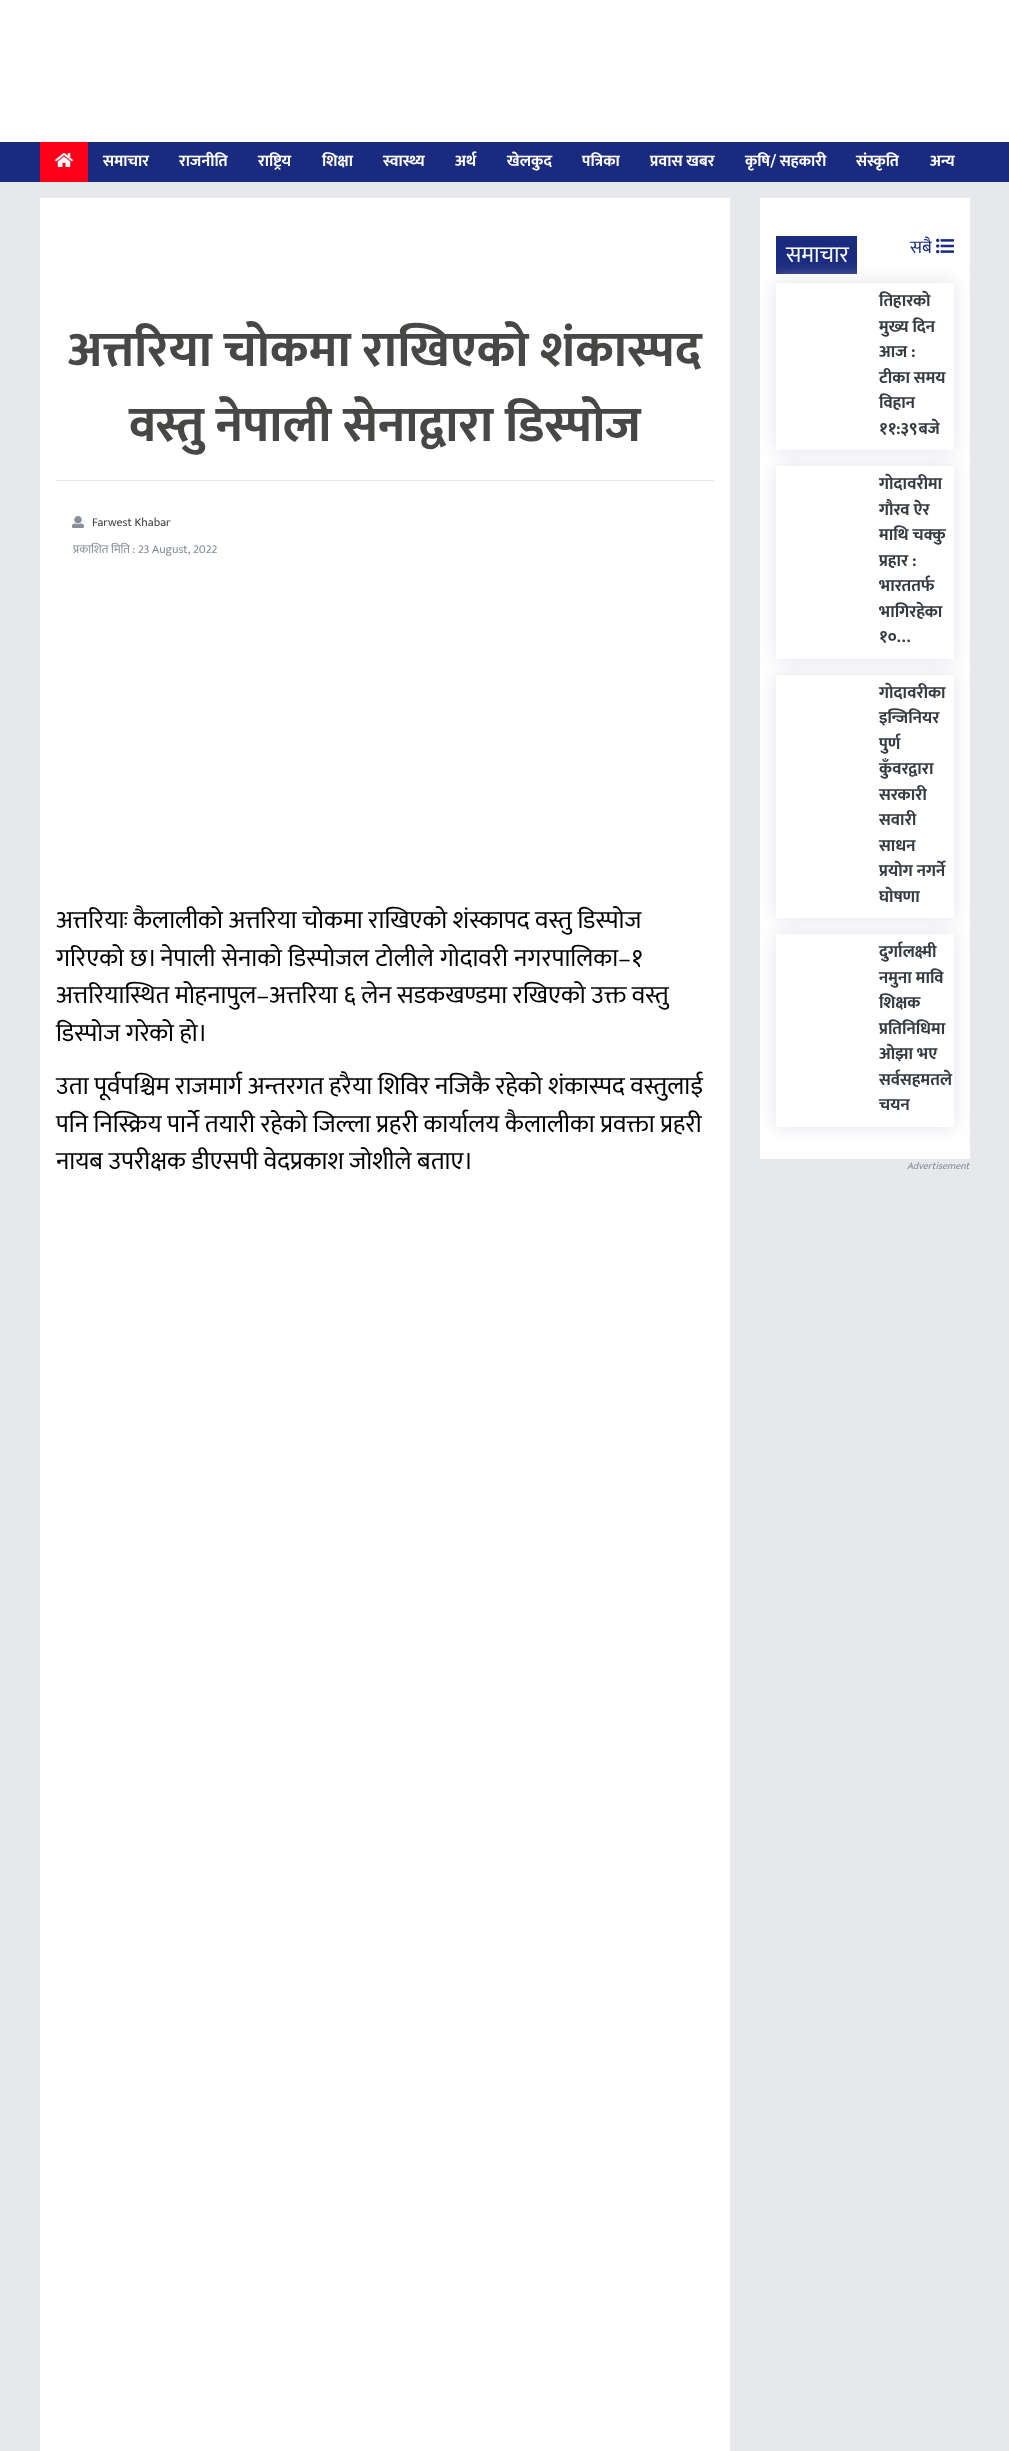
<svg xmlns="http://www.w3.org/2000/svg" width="1009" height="2451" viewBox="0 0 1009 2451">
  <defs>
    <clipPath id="clip1"><path d="M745 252H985V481H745ZM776 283H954V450H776Z" clip-rule="evenodd"/></clipPath>
    <filter id="blur1" x="-50%" y="-200%" width="200%" height="500%"><feGaussianBlur stdDeviation="10"/></filter>
    <clipPath id="clip2"><path d="M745 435H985V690H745ZM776 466H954V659H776Z" clip-rule="evenodd"/></clipPath>
    <clipPath id="clip3"><path d="M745 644H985V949H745ZM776 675H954V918H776Z" clip-rule="evenodd"/></clipPath>
    <clipPath id="clip4"><path d="M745 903H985V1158H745ZM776 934H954V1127H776Z" clip-rule="evenodd"/></clipPath>
  </defs>
  <rect width="100%" height="100%" fill="#e6e8ec"/>
  <rect x="0" y="0" width="1009" height="142" fill="#ffffff"/>
  <rect x="0" y="142" width="1009" height="40" fill="#1a2a7e"/>
  <rect x="40" y="142" width="48" height="40" fill="#fe0018"/>
  <image x="55" y="153" width="18" height="14" href="img1.png"/>
  <text x="103" y="166" font-family="Mukta" font-size="16" font-weight="bold" fill="#ffffff">समाचार</text>
  <text x="179" y="166" font-family="Mukta" font-size="16" font-weight="bold" fill="#ffffff">राजनीति</text>
  <text x="258" y="166" font-family="Mukta" font-size="16" font-weight="bold" fill="#ffffff">राष्ट्रिय</text>
  <text x="322" y="166" font-family="Mukta" font-size="16" font-weight="bold" fill="#ffffff">शिक्षा</text>
  <text x="383" y="166" font-family="Mukta" font-size="16" font-weight="bold" fill="#ffffff">स्वास्थ्य</text>
  <text x="455" y="166" font-family="Mukta" font-size="16" font-weight="bold" fill="#ffffff">अर्थ</text>
  <text x="507" y="166" font-family="Mukta" font-size="16" font-weight="bold" fill="#ffffff">खेलकुद</text>
  <text x="582" y="166" font-family="Mukta" font-size="16" font-weight="bold" fill="#ffffff">पत्रिका</text>
  <text x="650" y="166" font-family="Mukta" font-size="16" font-weight="bold" fill="#ffffff">प्रवास खबर</text>
  <text x="745" y="166" font-family="Mukta" font-size="16" font-weight="bold" fill="#ffffff">कृषि/ सहकारी</text>
  <text x="856" y="166" font-family="Mukta" font-size="16" font-weight="bold" fill="#ffffff">संस्कृति</text>
  <text x="930" y="166" font-family="Mukta" font-size="16" font-weight="bold" fill="#ffffff">अन्य</text>
  <rect x="40" y="198" width="690" height="2253" fill="#ffffff"/>
  <text x="68" y="366" font-family="Mukta" font-size="50" font-weight="bold" fill="#474746">अत्तरिया चोकमा राखिएको शंकास्पद</text>
  <text x="129" y="441" font-family="Mukta" font-size="50" font-weight="bold" fill="#474746">वस्तु नेपाली सेनाद्वारा डिस्पोज</text>
  <rect x="56" y="480" width="658" height="1" fill="#e6e6e6"/>
  <image x="72" y="516" width="12" height="12" href="img2.png"/>
  <text x="92" y="526" font-family="Mukta" font-size="12" fill="#474746">Farwest Khabar</text>
  <text x="73" y="553" font-family="Mukta" font-size="12" fill="#868e96">प्रकाशित मिति : 23 August, 2022</text>
  <text x="56" y="928" font-family="Mukta" font-size="25" fill="#000000">अत्तरियाः कैलालीको अत्तरिया चोकमा राखिएको शंस्कापद वस्तु डिस्पोज</text>
  <text x="56" y="966" word-spacing="0.5" font-family="Mukta" font-size="25" fill="#000000">गरिएको छ। नेपाली सेनाको डिस्पोजल टोलीले गोदावरी नगरपालिका–१</text>
  <text x="56" y="1003" font-family="Mukta" font-size="25" fill="#000000">अत्तरियास्थित मोहनापुल–अत्तरिया ६ लेन सडकखण्डमा रखिएको उक्त वस्तु</text>
  <text x="56" y="1041" font-family="Mukta" font-size="25" fill="#000000">डिस्पोज गरेको हो।</text>
  <text x="56" y="1094" font-family="Mukta" font-size="25" fill="#000000">उता पूर्वपश्चिम राजमार्ग अन्तरगत हरैया शिविर नजिकै रहेको शंकास्पद वस्तुलाई</text>
  <text x="56" y="1132" font-family="Mukta" font-size="25" fill="#000000">पनि निस्क्रिय पार्ने तयारी रहेको जिल्ला प्रहरी कार्यालय कैलालीका प्रवक्ता प्रहरी</text>
  <text x="56" y="1169" font-family="Mukta" font-size="25" fill="#000000">नायब उपरीक्षक डीएसपी वेदप्रकाश जोशीले बताए।</text>
  <rect x="760" y="198" width="210" height="961" fill="#ffffff"/>
  <rect x="776" y="236" width="81" height="38" fill="#1a2a7e"/>
  <text x="786" y="262" font-family="Mukta" font-size="23" fill="#ffffff">समाचार</text>
  <text x="910" y="253" font-family="Mukta" font-size="18" fill="#1a2a7e">सबै</text>
  <image x="936" y="238" width="18" height="16" href="img3.png"/>
  <g clip-path="url(#clip1)">
    <rect x="776" y="283" width="178" height="167" fill="#e3e3ec" filter="url(#blur1)"/>
  </g>
  <text x="879" y="306" font-family="Mukta" font-size="17" font-weight="bold" fill="#343a40">तिहारको</text>
  <text x="879" y="332" font-family="Mukta" font-size="17" font-weight="bold" fill="#343a40">मुख्य दिन</text>
  <text x="879" y="357" font-family="Mukta" font-size="17" font-weight="bold" fill="#343a40">आज :</text>
  <text x="879" y="383" font-family="Mukta" font-size="17" font-weight="bold" fill="#343a40">टीका समय</text>
  <text x="879" y="408" font-family="Mukta" font-size="17" font-weight="bold" fill="#343a40">विहान</text>
  <g clip-path="url(#clip2)">
    <rect x="776" y="466" width="178" height="193" fill="#e3e3ec" filter="url(#blur1)"/>
  </g>
  <text x="879" y="434" font-family="Mukta" font-size="17" font-weight="bold" fill="#343a40">११:३९बजे</text>
  <text x="879" y="489" font-family="Mukta" font-size="17" font-weight="bold" fill="#343a40">गोदावरीमा</text>
  <text x="879" y="515" font-family="Mukta" font-size="17" font-weight="bold" fill="#343a40">गाैरव ऐर</text>
  <text x="879" y="540" font-family="Mukta" font-size="17" font-weight="bold" fill="#343a40">माथि चक्कु</text>
  <text x="879" y="566" font-family="Mukta" font-size="17" font-weight="bold" fill="#343a40">प्रहार :</text>
  <text x="879" y="591" font-family="Mukta" font-size="17" font-weight="bold" fill="#343a40">भारततर्फ</text>
  <text x="879" y="617" font-family="Mukta" font-size="17" font-weight="bold" fill="#343a40">भागिरहेका</text>
  <text x="879" y="642" font-family="Mukta" font-size="17" font-weight="bold" fill="#343a40">१०…</text>
  <g clip-path="url(#clip3)">
    <rect x="776" y="675" width="178" height="243" fill="#e3e3ec" filter="url(#blur1)"/>
  </g>
  <text x="879" y="698" font-family="Mukta" font-size="17" font-weight="bold" fill="#343a40">गोदावरीका</text>
  <text x="879" y="723" font-family="Mukta" font-size="17" font-weight="bold" fill="#343a40">इन्जिनियर</text>
  <text x="879" y="749" font-family="Mukta" font-size="17" font-weight="bold" fill="#343a40">पुर्ण</text>
  <text x="879" y="774" font-family="Mukta" font-size="17" font-weight="bold" fill="#343a40">कुँवरद्वारा</text>
  <text x="879" y="800" font-family="Mukta" font-size="17" font-weight="bold" fill="#343a40">सरकारी</text>
  <text x="879" y="825" font-family="Mukta" font-size="17" font-weight="bold" fill="#343a40">सवारी</text>
  <text x="879" y="851" font-family="Mukta" font-size="17" font-weight="bold" fill="#343a40">साधन</text>
  <text x="879" y="876" font-family="Mukta" font-size="17" font-weight="bold" fill="#343a40">प्रयोग नगर्ने</text>
  <text x="879" y="902" font-family="Mukta" font-size="17" font-weight="bold" fill="#343a40">घाेषणा</text>
  <g clip-path="url(#clip4)">
    <rect x="776" y="934" width="178" height="193" fill="#e3e3ec" filter="url(#blur1)"/>
  </g>
  <text x="879" y="957" font-family="Mukta" font-size="17" font-weight="bold" fill="#343a40">दुर्गालक्ष्मी</text>
  <text x="879" y="983" font-family="Mukta" font-size="17" font-weight="bold" fill="#343a40">नमुना मावि</text>
  <text x="879" y="1008" font-family="Mukta" font-size="17" font-weight="bold" fill="#343a40">शिक्षक</text>
  <text x="879" y="1034" font-family="Mukta" font-size="17" font-weight="bold" fill="#343a40">प्रतिनिधिमा</text>
  <text x="879" y="1059" font-family="Mukta" font-size="17" font-weight="bold" fill="#343a40">ओझा भए</text>
  <text x="879" y="1085" font-family="Mukta" font-size="17" font-weight="bold" fill="#343a40">सर्वसहमतले</text>
  <text x="879" y="1110" font-family="Mukta" font-size="17" font-weight="bold" fill="#343a40">चयन</text>
  <text x="907" y="1169" font-family="Mukta" font-size="10" font-style="italic" fill="#868e96">Advertisement</text>
</svg>
